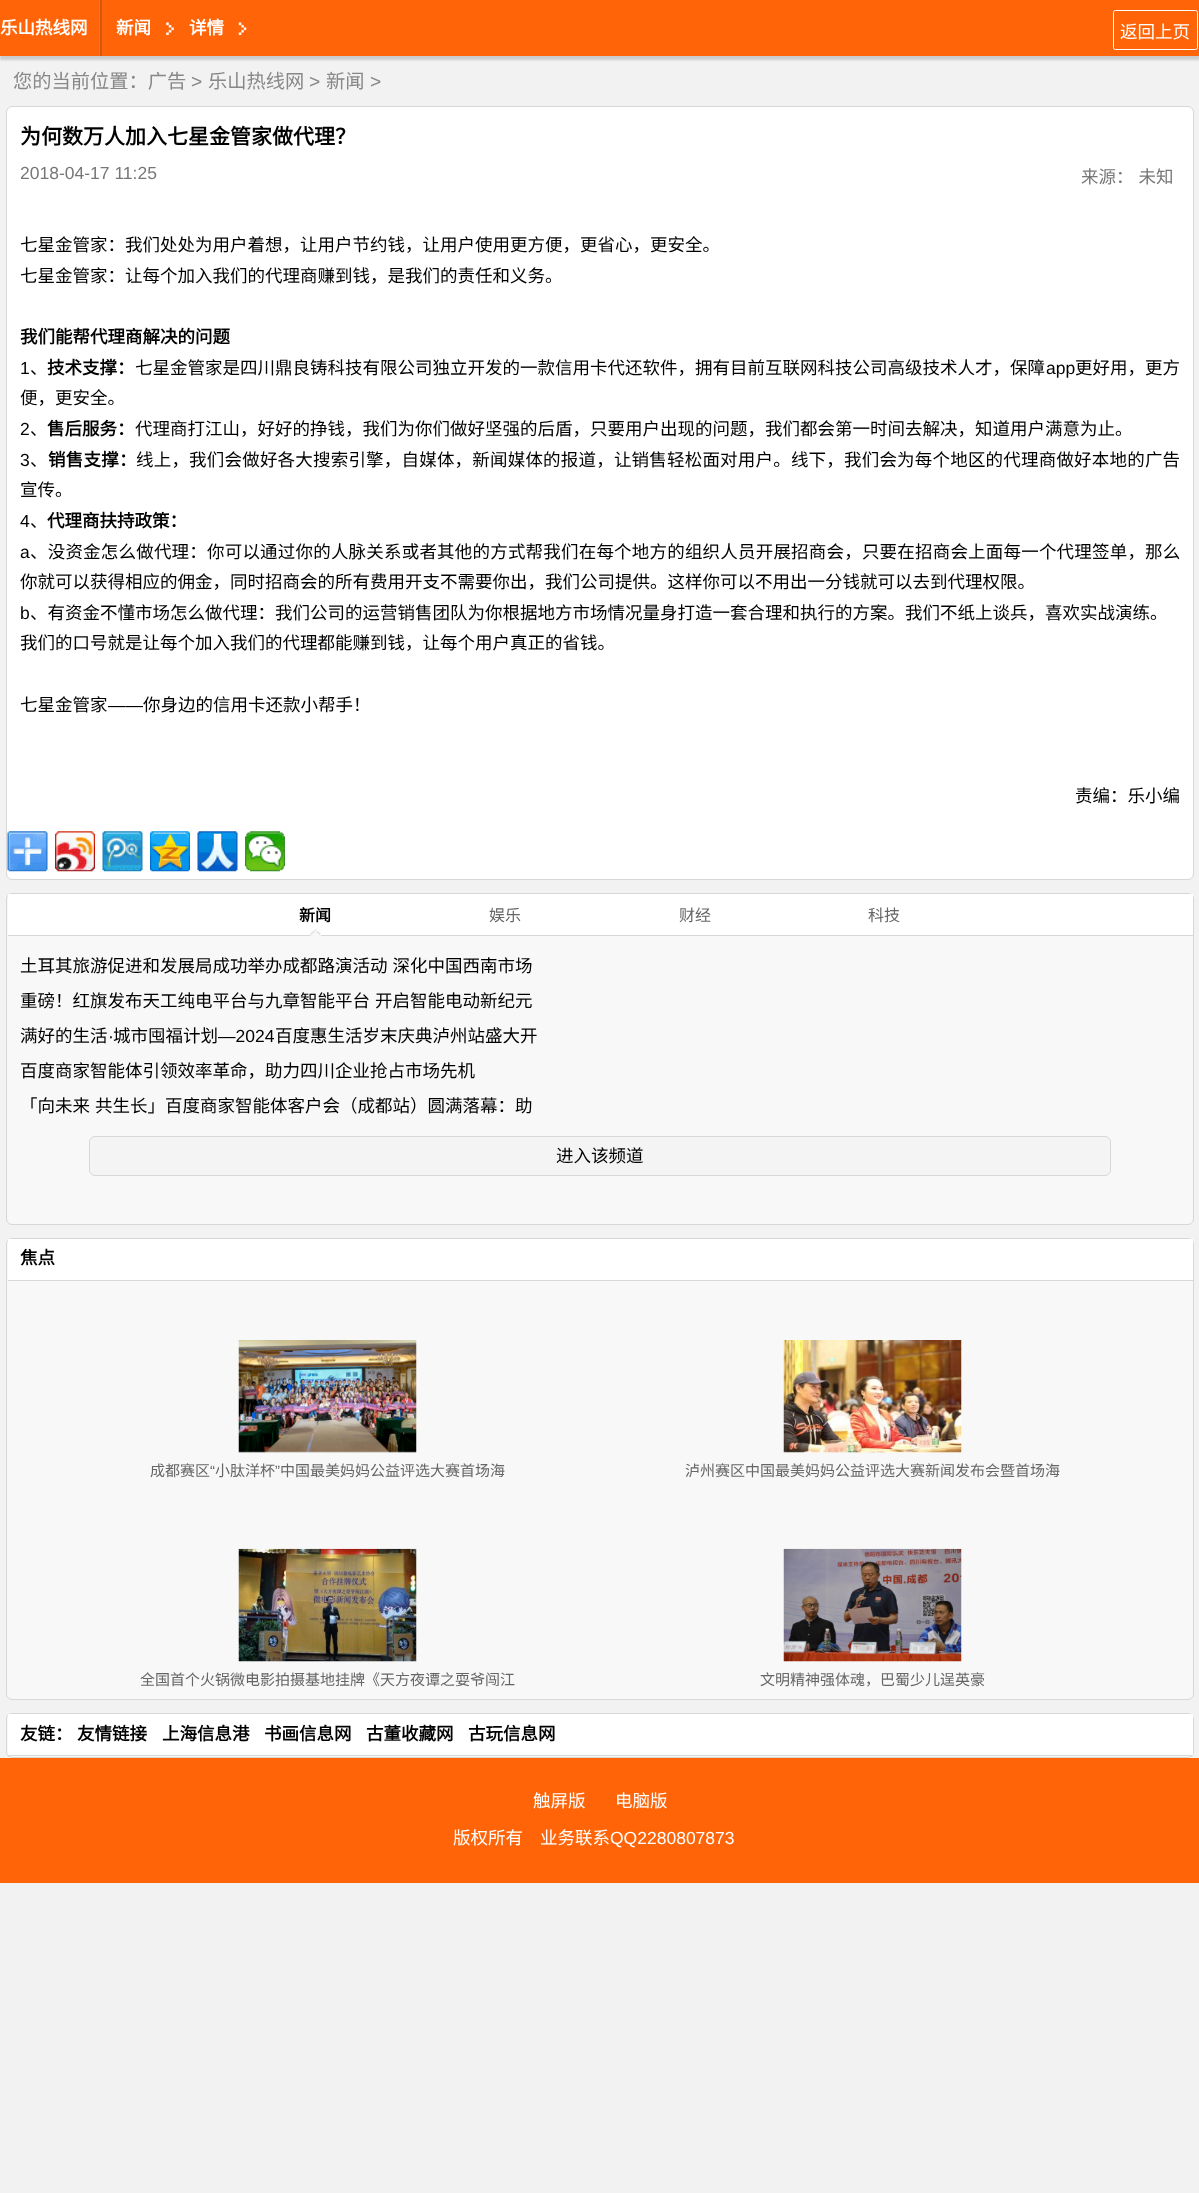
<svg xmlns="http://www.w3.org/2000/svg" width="1199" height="2193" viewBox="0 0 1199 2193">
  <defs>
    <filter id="blur1" x="-50%" y="-200%" width="200%" height="500%"><feGaussianBlur stdDeviation="1"/></filter>
  </defs>
  <rect width="100%" height="100%" fill="#f2f2f2"/>
  <rect x="0" y="4" width="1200" height="56" fill="#cccccc" filter="url(#blur1)"/>
  <rect x="0" y="0" width="1199" height="56" fill="#ff6508"/>
  <text x="0" y="34" font-family="Noto Sans CJK SC" font-size="17.5" font-weight="bold" fill="#ffffff">乐山热线网</text>
  <rect x="100" y="0" width="2" height="56" fill="#d1570e"/>
  <rect x="99" y="0" width="1" height="56" fill="#ff731f"/>
  <image x="166" y="22" width="8" height="13" href="img1.png"/>
  <text x="116" y="34" font-family="Noto Sans CJK SC" font-size="17.5" font-weight="bold" fill="#ffffff">新闻</text>
  <image x="238" y="22" width="9" height="13" href="img2.png"/>
  <text x="189" y="34" font-family="Noto Sans CJK SC" font-size="17.5" font-weight="bold" fill="#ffffff">详情</text>
  <rect x="1113.5" y="10.5" width="84" height="39" rx="2" fill="none" stroke="#ffffff"/>
  <text x="1120" y="38" font-family="Noto Sans CJK SC" font-size="17.5" fill="#ffffff">返回上页</text>
  <text x="13" y="88" font-family="Noto Sans CJK SC" font-size="19.25" fill="#888888">您的当前位置：广告</text>
  <text x="191" y="88" font-family="Liberation Sans" font-size="19.25" fill="#888888">&gt;</text>
  <text x="208" y="88" font-family="Noto Sans CJK SC" font-size="19.25" fill="#888888">乐山热线网</text>
  <text x="309" y="88" font-family="Liberation Sans" font-size="19.25" fill="#888888">&gt;</text>
  <text x="326" y="88" font-family="Noto Sans CJK SC" font-size="19.25" fill="#888888">新闻</text>
  <text x="370" y="88" font-family="Liberation Sans" font-size="19.25" fill="#888888">&gt;</text>
  <rect x="6.5" y="106.5" width="1187" height="773" rx="5.5" fill="#ffffff" stroke="#d7d7d7"/>
  <text x="20" y="144" font-family="Noto Sans CJK SC" font-size="21" font-weight="bold" fill="#000000">为何数万人加入七星金管家做代理？</text>
  <text x="20" y="179" font-family="Liberation Sans" font-size="17.5" fill="#777777">2018-04-17 11:25</text>
  <text x="1081" y="183" word-spacing="1" font-family="Noto Sans CJK SC" font-size="17.5" fill="#777777">来源： 未知</text>
  <text x="20" y="251" font-family="Noto Sans CJK SC" font-size="17.5" fill="#000000">七星金管家：我们处处为用户着想，让用户节约钱，让用户使用更方便，更省心，更安全。</text>
  <text x="20" y="282" font-family="Noto Sans CJK SC" font-size="17.5" fill="#000000">七星金管家：让每个加入我们的代理商赚到钱，是我们的责任和义务。</text>
  <text x="20" y="343" font-family="Noto Sans CJK SC" font-size="17.5" font-weight="bold" fill="#000000">我们能帮代理商解决的问题</text>
  <text x="20" y="374" font-family="Liberation Sans" font-size="17.5" fill="#000000">1</text>
  <text x="30" y="374" font-family="Noto Sans CJK SC" font-size="17.5" fill="#000000">、</text>
  <text x="47" y="374" font-family="Noto Sans CJK SC" font-size="17.5" font-weight="bold" fill="#000000">技术支撑：</text>
  <text x="135" y="374" font-family="Noto Sans CJK SC" font-size="17.5" fill="#000000">七星金管家是四川鼎良铸科技有限公司独立开发的一款信用卡代还软件，拥有目前互联网科技公司高级技术人才，保障</text>
  <text x="1046" y="374" font-family="Liberation Sans" font-size="17.5" fill="#000000">app</text>
  <text x="1075" y="374" font-family="Noto Sans CJK SC" font-size="17.5" fill="#000000">更好用，更方</text>
  <text x="20" y="404" font-family="Noto Sans CJK SC" font-size="17.5" fill="#000000">便，更安全。</text>
  <text x="20" y="435" font-family="Liberation Sans" font-size="17.5" fill="#000000">2</text>
  <text x="30" y="435" font-family="Noto Sans CJK SC" font-size="17.5" fill="#000000">、</text>
  <text x="47" y="435" font-family="Noto Sans CJK SC" font-size="17.5" font-weight="bold" fill="#000000">售后服务：</text>
  <text x="135" y="435" font-family="Noto Sans CJK SC" font-size="17.5" fill="#000000">代理商打江山，好好的挣钱，我们为你们做好坚强的后盾，只要用户出现的问题，我们都会第一时间去解决，知道用户满意为止。</text>
  <text x="20" y="466" font-family="Liberation Sans" font-size="17.5" fill="#000000">3</text>
  <text x="30" y="466" font-family="Noto Sans CJK SC" font-size="17.5" fill="#000000">、</text>
  <text x="48" y="466" font-family="Noto Sans CJK SC" font-size="17.5" font-weight="bold" letter-spacing="0.25" fill="#000000">销售支撑：</text>
  <text x="136" y="466" font-family="Noto Sans CJK SC" font-size="17.5" letter-spacing="0.2" fill="#000000">线上，我们会做好各大搜索引擎，自媒体，新闻媒体的报道，让销售轻松面对用户。线下，我们会为每个地区的代理商做好本地的广告</text>
  <text x="20" y="496" font-family="Noto Sans CJK SC" font-size="17.5" fill="#000000">宣传。</text>
  <text x="20" y="527" font-family="Liberation Sans" font-size="17.5" fill="#000000">4</text>
  <text x="30" y="527" font-family="Noto Sans CJK SC" font-size="17.5" fill="#000000">、</text>
  <text x="47" y="527" font-family="Noto Sans CJK SC" font-size="17.5" font-weight="bold" fill="#000000">代理商扶持政策：</text>
  <text x="20" y="558" font-family="Liberation Sans" font-size="17.5" letter-spacing="0.2" fill="#000000">a</text>
  <text x="30" y="558" font-family="Noto Sans CJK SC" font-size="17.5" letter-spacing="0.2" fill="#000000">、没资金怎么做代理：你可以通过你的人脉关系或者其他的方式帮我们在每个地方的组织人员开展招商会，只要在招商会上面每一个代理签单，那么</text>
  <text x="20" y="588" font-family="Noto Sans CJK SC" font-size="17.5" fill="#000000">你就可以获得相应的佣金，同时招商会的所有费用开支不需要你出，我们公司提供。这样你可以不用出一分钱就可以去到代理权限。</text>
  <text x="20" y="619" font-family="Liberation Sans" font-size="17.5" fill="#000000">b</text>
  <text x="30" y="619" font-family="Noto Sans CJK SC" font-size="17.5" fill="#000000">、有资金不懂市场怎么做代理：我们公司的运营销售团队为你根据地方市场情况量身打造一套合理和执行的方案。我们不纸上谈兵，喜欢实战演练。</text>
  <text x="20" y="649" font-family="Noto Sans CJK SC" font-size="17.5" fill="#000000">我们的口号就是让每个加入我们的代理都能赚到钱，让每个用户真正的省钱。</text>
  <text x="20" y="711" font-family="Noto Sans CJK SC" font-size="17.5" fill="#000000">七星金管家</text>
  <text x="108" y="711" font-family="Liberation Sans" font-size="17.5" fill="#000000">——</text>
  <text x="143" y="711" font-family="Noto Sans CJK SC" font-size="17.5" fill="#000000">你身边的信用卡还款小帮手！</text>
  <text x="1075" y="802" font-family="Noto Sans CJK SC" font-size="17.5" fill="#000000">责编：乐小编</text>
  <image x="7" y="831" width="41" height="41" href="img3.png"/>
  <image x="55" y="831" width="40" height="41" href="img4.png"/>
  <image x="102" y="831" width="41" height="41" href="img5.png"/>
  <image x="150" y="831" width="40" height="41" href="img6.png"/>
  <image x="197" y="831" width="41" height="41" href="img7.png"/>
  <image x="245" y="831" width="40" height="41" href="img8.png"/>
  <rect x="6.5" y="893.5" width="1187" height="331" rx="5.5" fill="#f8f8f8" stroke="#d7d7d7"/>
  <rect x="8" y="894" width="1185" height="41" fill="#ffffff"/>
  <rect x="8" y="935" width="1185" height="1" fill="#d7d7d7"/>
  <image x="310" y="928" width="12" height="8" href="img9.png"/>
  <text x="299" y="921" font-family="Noto Sans CJK SC" font-size="16" font-weight="bold" fill="#000000">新闻</text>
  <text x="489" y="921" font-family="Noto Sans CJK SC" font-size="16" fill="#666666">娱乐</text>
  <text x="679" y="921" font-family="Noto Sans CJK SC" font-size="16" fill="#666666">财经</text>
  <text x="868" y="921" font-family="Noto Sans CJK SC" font-size="16" fill="#666666">科技</text>
  <text x="20" y="972" word-spacing="1" font-family="Noto Sans CJK SC" font-size="17.5" fill="#000000">土耳其旅游促进和发展局成功举办成都路演活动 深化中国西南市场</text>
  <text x="20" y="1007" word-spacing="1" font-family="Noto Sans CJK SC" font-size="17.5" fill="#000000">重磅！红旗发布天工纯电平台与九章智能平台 开启智能电动新纪元</text>
  <text x="20" y="1042" font-family="Noto Sans CJK SC" font-size="17.5" fill="#000000">满好的生活</text>
  <text x="108" y="1042" font-family="Liberation Sans" font-size="17.5" fill="#000000">·</text>
  <text x="113" y="1042" font-family="Noto Sans CJK SC" font-size="17.5" fill="#000000">城市囤福计划</text>
  <text x="218" y="1042" font-family="Liberation Sans" font-size="17.5" fill="#000000">—2024</text>
  <text x="275" y="1042" font-family="Noto Sans CJK SC" font-size="17.5" fill="#000000">百度惠生活岁末庆典泸州站盛大开</text>
  <text x="20" y="1077" font-family="Noto Sans CJK SC" font-size="17.5" fill="#000000">百度商家智能体引领效率革命，助力四川企业抢占市场先机</text>
  <text x="20" y="1112" word-spacing="1" font-family="Noto Sans CJK SC" font-size="17.5" fill="#000000">「向未来 共生长」百度商家智能体客户会（成都站）圆满落幕：助</text>
  <rect x="89.5" y="1136.5" width="1021" height="39" rx="5.5" fill="#f4f4f4" stroke="#d7d7d7"/>
  <text x="556" y="1162" font-family="Noto Sans CJK SC" font-size="17.5" fill="#000000">进入该频道</text>
  <rect x="6.5" y="1238.5" width="1187" height="461" rx="5.5" fill="#f8f8f8" stroke="#d7d7d7"/>
  <rect x="8" y="1239" width="1185" height="41" fill="#ffffff"/>
  <rect x="8" y="1280" width="1185" height="1" fill="#d7d7d7"/>
  <text x="20" y="1264" font-family="Noto Sans CJK SC" font-size="17.5" font-weight="bold" fill="#000000">焦点</text>
  <image x="238" y="1340" width="179" height="113" href="img10.png"/>
  <text x="150" y="1476" font-family="Noto Sans CJK SC" font-size="15" fill="#666666">成都赛区</text>
  <text x="210" y="1476" font-family="Liberation Sans" font-size="15" fill="#666666">“</text>
  <text x="215" y="1476" font-family="Noto Sans CJK SC" font-size="15" fill="#666666">小肽洋杯</text>
  <text x="275" y="1476" font-family="Liberation Sans" font-size="15" fill="#666666">”</text>
  <text x="280" y="1476" font-family="Noto Sans CJK SC" font-size="15" fill="#666666">中国最美妈妈公益评选大赛首场海</text>
  <image x="783" y="1340" width="179" height="113" href="img11.png"/>
  <text x="685" y="1476" font-family="Noto Sans CJK SC" font-size="15" fill="#666666">泸州赛区中国最美妈妈公益评选大赛新闻发布会暨首场海</text>
  <image x="238" y="1548" width="179" height="114" href="img12.png"/>
  <text x="140" y="1685" font-family="Noto Sans CJK SC" font-size="15" fill="#666666">全国首个火锅微电影拍摄基地挂牌《天方夜谭之耍爷闯江</text>
  <image x="783" y="1548" width="179" height="114" href="img13.png"/>
  <text x="760" y="1685" font-family="Noto Sans CJK SC" font-size="15" fill="#666666">文明精神强体魂，巴蜀少儿逞英豪</text>
  <rect x="6.5" y="1713.5" width="1187" height="44" rx="5.5" fill="#f8f8f8" stroke="#d7d7d7"/>
  <rect x="8" y="1714" width="1185" height="41" fill="#ffffff"/>
  <rect x="8" y="1755" width="1185" height="1" fill="#d7d7d7"/>
  <text x="20" y="1740" font-family="Noto Sans CJK SC" font-size="17.5" font-weight="bold" fill="#000000">友链：</text>
  <text x="77" y="1740" font-family="Noto Sans CJK SC" font-size="17.5" font-weight="bold" fill="#000000">友情链接</text>
  <text x="162" y="1740" font-family="Noto Sans CJK SC" font-size="17.5" font-weight="bold" fill="#000000">上海信息港</text>
  <text x="264" y="1740" font-family="Noto Sans CJK SC" font-size="17.5" font-weight="bold" fill="#000000">书画信息网</text>
  <text x="366" y="1740" font-family="Noto Sans CJK SC" font-size="17.5" font-weight="bold" fill="#000000">古董收藏网</text>
  <text x="468" y="1740" font-family="Noto Sans CJK SC" font-size="17.5" font-weight="bold" fill="#000000">古玩信息网</text>
  <rect x="0" y="1758" width="1199" height="125" fill="#ff6508"/>
  <text x="533" y="1807" font-family="Noto Sans CJK SC" font-size="17.5" fill="#ffffff">触屏版</text>
  <text x="615" y="1807" font-family="Noto Sans CJK SC" font-size="17.5" fill="#ffffff">电脑版</text>
  <text x="453" y="1844" font-family="Noto Sans CJK SC" font-size="17.5" fill="#ffffff">版权所有</text>
  <text x="540" y="1844" font-family="Noto Sans CJK SC" font-size="17.5" fill="#ffffff">业务联系</text>
  <text x="610" y="1844" font-family="Liberation Sans" font-size="17.5" fill="#ffffff">QQ2280807873</text>
</svg>
